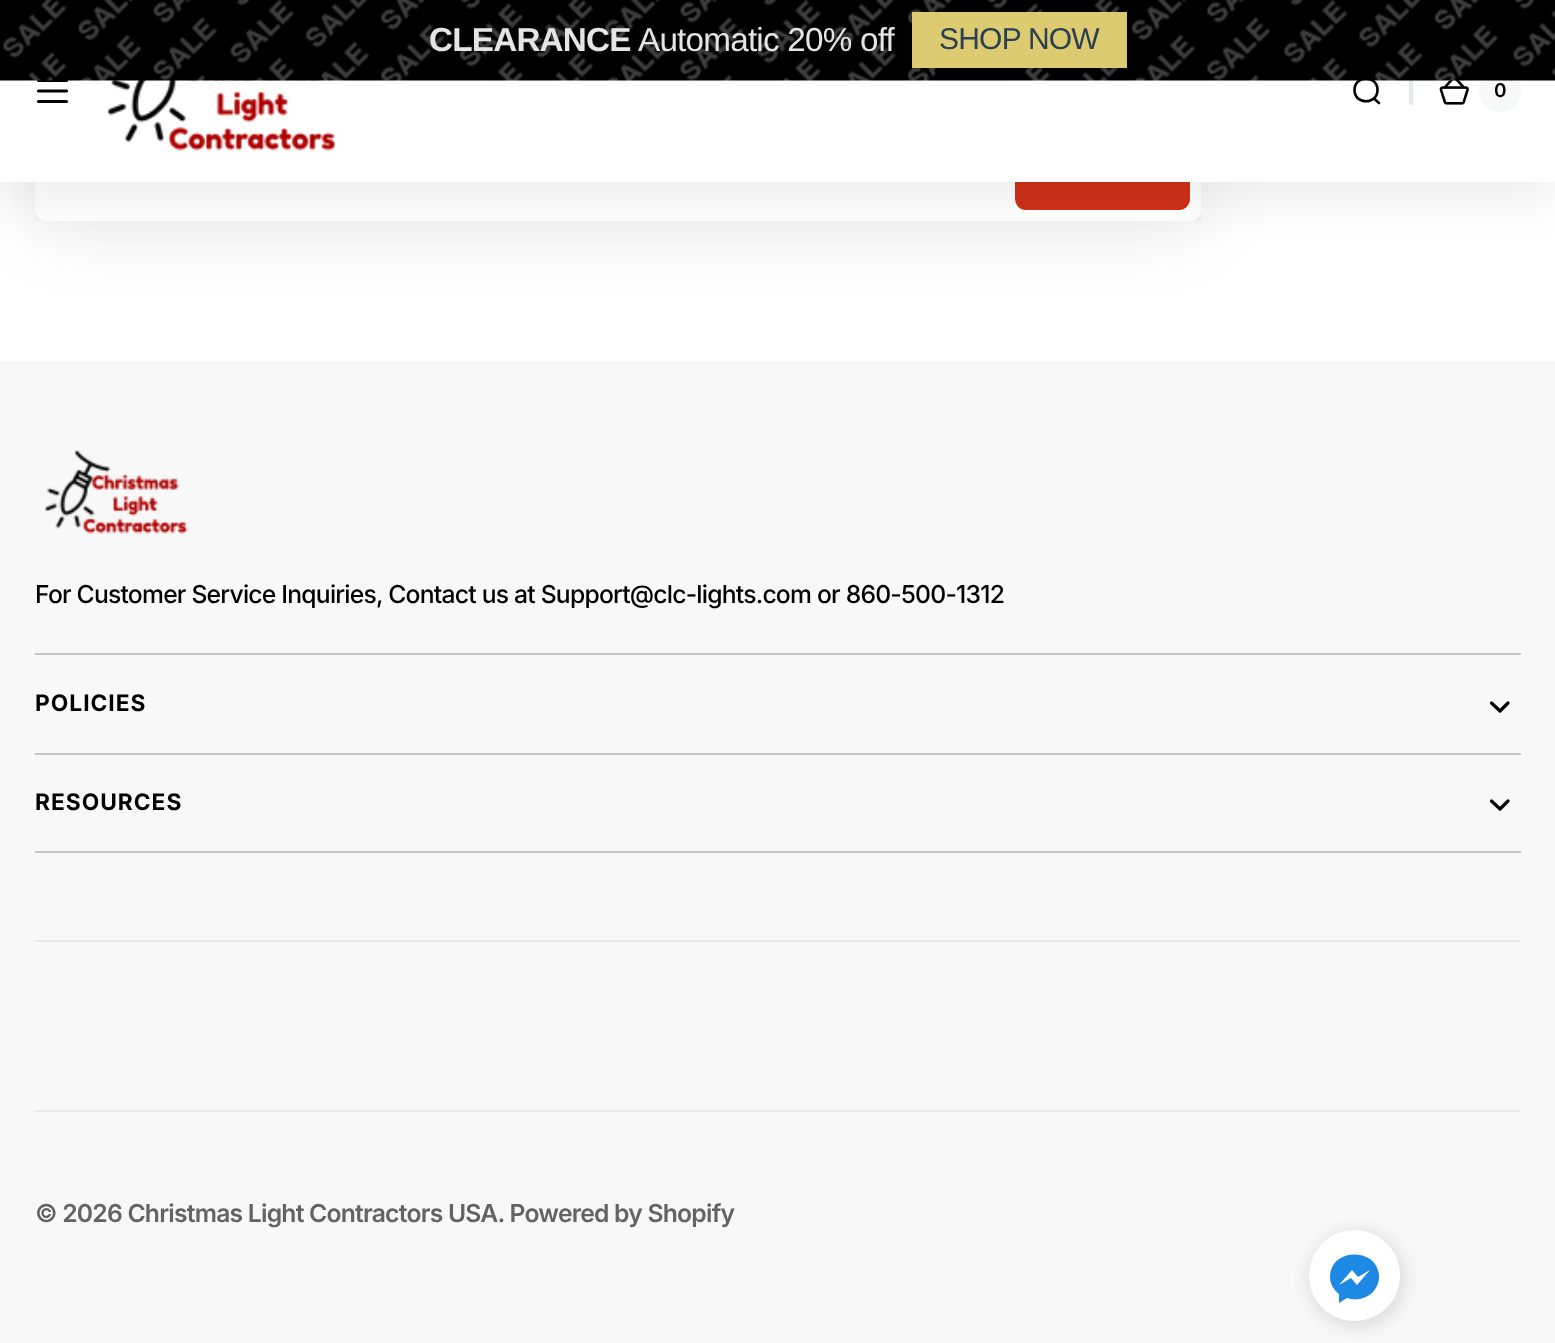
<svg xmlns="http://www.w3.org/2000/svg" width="1555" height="1343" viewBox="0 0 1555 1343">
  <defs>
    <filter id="blur1" x="-50%" y="-200%" width="200%" height="500%"><feGaussianBlur stdDeviation="35"/></filter>
    <filter id="blur2" x="-50%" y="-200%" width="200%" height="500%"><feGaussianBlur stdDeviation="26"/></filter>
    <filter id="blur3" x="-50%" y="-200%" width="200%" height="500%"><feGaussianBlur stdDeviation="9"/></filter>
    <filter id="blur4" x="-50%" y="-200%" width="200%" height="500%"><feGaussianBlur stdDeviation="8"/></filter>
  </defs>
  <rect width="100%" height="100%" fill="#ffffff"/>
  <rect x="35" y="210" width="1166" height="11" fill="#f8f8f8"/>
  <rect x="35" y="130" width="1166" height="105" rx="11" fill="#011624" fill-opacity="0.08" filter="url(#blur1)"/>
  <rect x="35" y="116" width="1166" height="105" rx="11" fill="#ffffff"/>
  <rect x="1015" y="126" width="175" height="84" rx="11" fill="#cf3018"/>
  <rect x="0" y="14" width="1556" height="182" fill="#000000" fill-opacity="0.08" filter="url(#blur2)"/>
  <rect x="0" y="80" width="1555" height="102" fill="#ffffff"/>
  <path d="M38.5 80.5H66.5M38.5 91H66.5M38.5 101.5H66.5" fill="none" stroke="#000000" stroke-width="3.1" stroke-linecap="round"/>
  <image x="106" y="80" width="231" height="71" href="img2.png"/>
  <path d="M1374 98.5L1379 103M1377.5 90C1377.5 105 1354.5 105 1354.5 90C1354.5 75 1377.5 75 1377.5 90Z" fill="none" stroke="#000000" stroke-width="2.6" stroke-linecap="round"/>
  <rect x="1409" y="77" width="4" height="28" rx="2" fill="#e6e8e9"/>
  <image x="1439" y="80" width="30" height="25" href="img3.png"/>
  <circle cx="1500" cy="91" r="21" fill="#f7f8f8"/>
  <image x="0" y="0" width="1555" height="81" href="img1.png"/>
  <text x="429" y="51" font-family="Liberation Sans" font-size="33.25" font-weight="bold" letter-spacing="-0.78" fill="#e5e5e5">CLEARANCE</text>
  <text x="638" y="51" font-family="Liberation Sans" font-size="33.25" letter-spacing="-0.78" fill="#e5e5e5">Automatic 20% off</text>
  <rect x="912" y="12" width="215" height="56" fill="#dccb70"/>
  <text x="939" y="49" font-family="Liberation Sans" font-size="30" letter-spacing="-0.78" fill="#2c4053">SHOP NOW</text>
  <text x="1494" y="97" font-family="Inter" font-size="19" font-weight="600" letter-spacing="-0.78" fill="#000000">0</text>
  <rect x="0" y="361" width="1555" height="982" fill="#f8f8f8"/>
  <image x="45" y="450" width="143" height="84" href="img4.png"/>
  <text x="35" y="603" font-family="Inter" font-size="24.7" font-weight="500" letter-spacing="-0.78" fill="#000000">For Customer Service Inquiries, Contact us at Support@clc-lights.com or 860-500-1312</text>
  <rect x="35" y="653" width="1486" height="2" fill="#c6c6c6"/>
  <rect x="35" y="753" width="1486" height="2" fill="#c6c6c6"/>
  <text x="35" y="711" font-family="Inter" font-size="22.75" font-weight="bold" letter-spacing="1" fill="#000000">POLICIES</text>
  <path d="M1508 703L1500 711L1491.5 703" fill="none" stroke="#000000" stroke-width="3.2" stroke-linecap="round" stroke-linejoin="round"/>
  <rect x="35" y="851" width="1486" height="2" fill="#c6c6c6"/>
  <text x="35" y="810" font-family="Inter" font-size="22.75" font-weight="bold" letter-spacing="1" fill="#000000">RESOURCES</text>
  <path d="M1508 801L1500 809L1491.5 801" fill="none" stroke="#000000" stroke-width="3.2" stroke-linecap="round" stroke-linejoin="round"/>
  <rect x="35" y="940" width="1486" height="2" fill="#e6e8e9"/>
  <rect x="35" y="1110" width="1486" height="2" fill="#e6e8e9"/>
  <text x="35" y="1222" font-family="Inter" font-size="24.7" font-weight="600" letter-spacing="-0.78" fill="#636363">© 2026 Christmas Light Contractors USA. Powered by Shopify</text>
  <rect x="1309" y="1234" width="91" height="91" rx="45.5" fill="#000000" fill-opacity="0.05" filter="url(#blur3)"/>
  <rect x="1309" y="1230" width="98" height="98" rx="49" fill="#000000" fill-opacity="0.07" filter="url(#blur4)"/>
  <circle cx="1354.5" cy="1275.5" r="45.5" fill="#ffffff"/>
  <path d="M1330 1277C1330 1247 1379 1247 1379 1277C1379 1283 1376 1289 1372 1293C1365 1299 1356 1301 1347 1298L1339 1303V1294C1334 1290 1330 1284 1330 1277ZM1351 1278L1357 1285L1370 1270L1358 1277L1352 1270L1339 1285Z" fill="#1e88e5" fill-rule="evenodd"/>
</svg>
